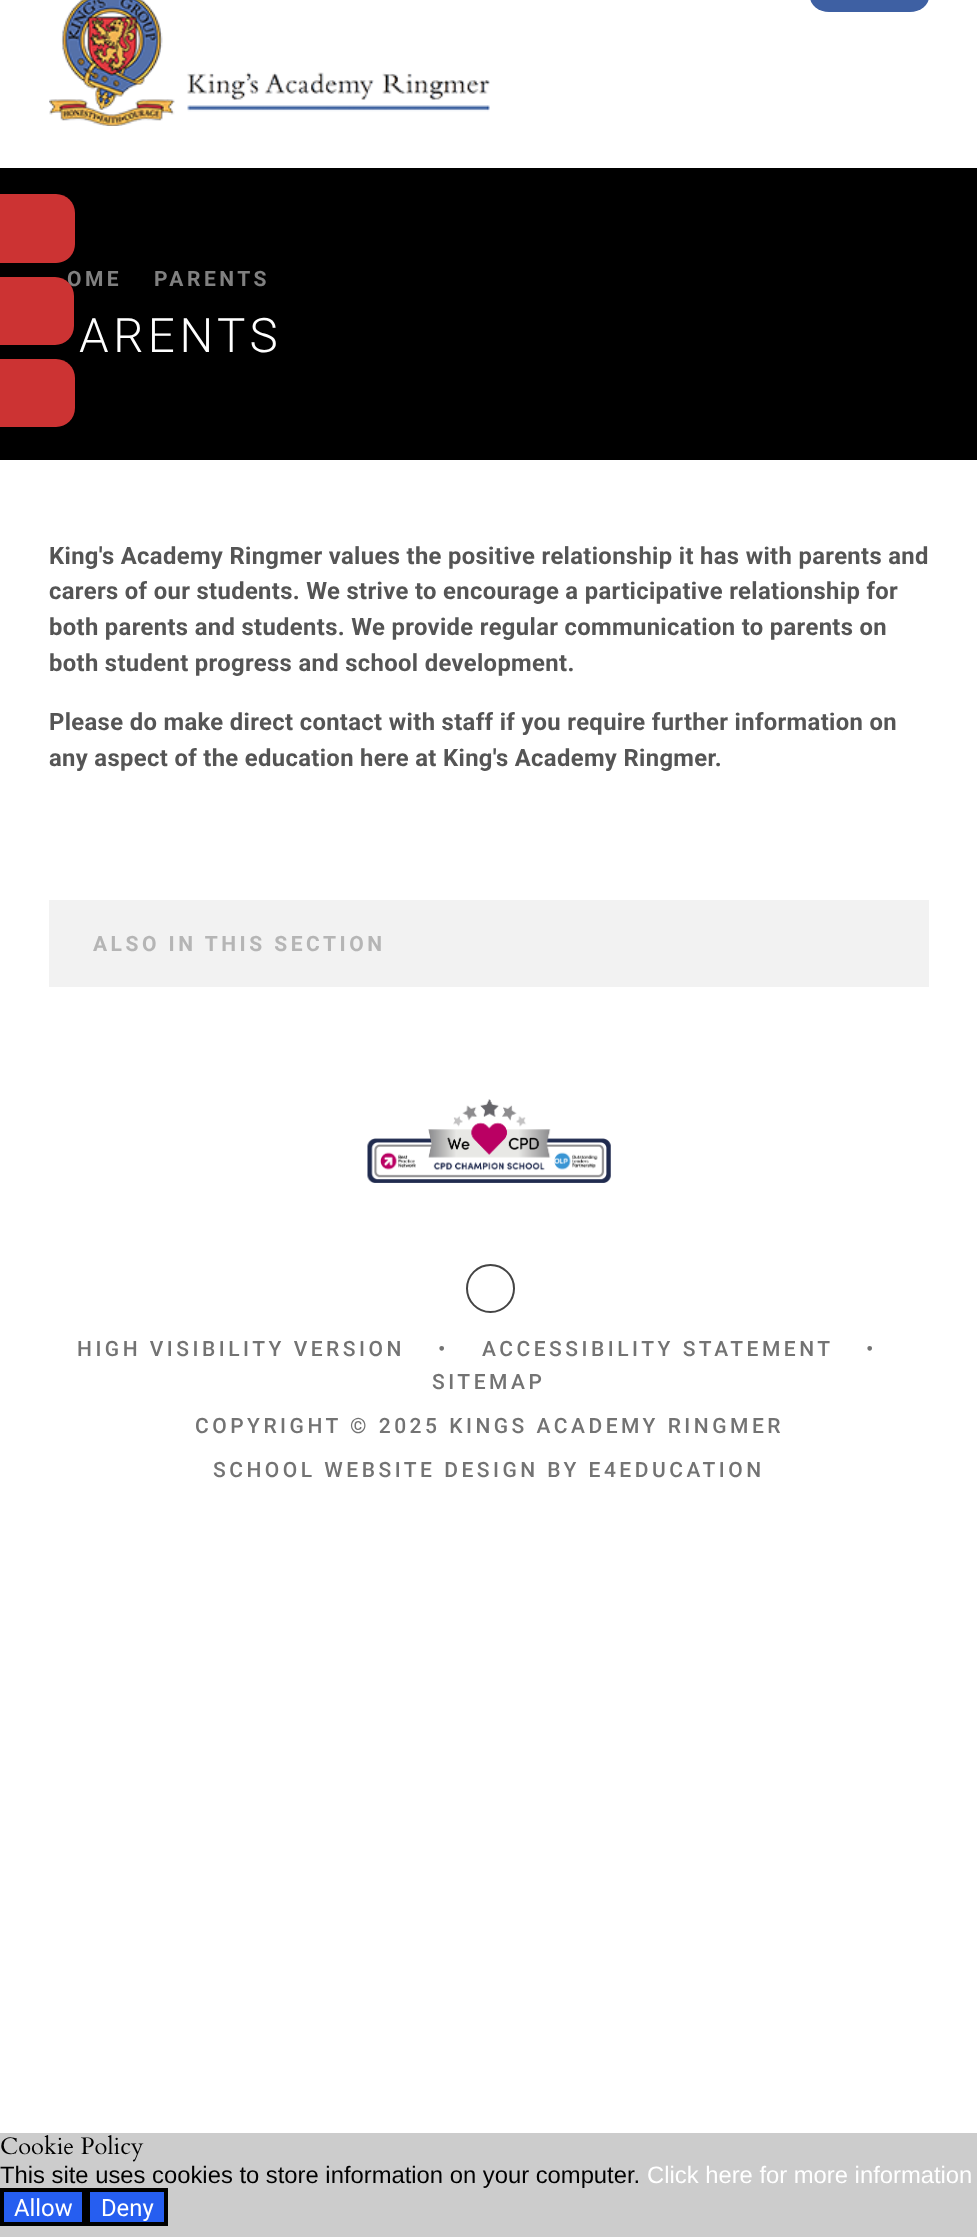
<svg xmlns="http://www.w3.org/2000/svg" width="977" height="2237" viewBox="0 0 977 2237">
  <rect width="100%" height="100%" fill="#cccccc"/>
  <rect x="0" y="0" width="977" height="2133" fill="#ffffff"/>
  <rect x="810" y="-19" width="119" height="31" rx="19" fill="#3e60a3"/>
  <image x="49" y="0" width="441" height="126" href="img1.png"/>
  <rect x="0" y="168" width="977" height="292" fill="#000000"/>
  <path d="M0 194H56C66.5 194 75 202.5 75 213V244C75 254.5 66.5 263 56 263H0Z" fill="#cc3333"/>
  <text x="67" y="286" font-family="Roboto" font-size="21" font-weight="bold" letter-spacing="3.5" fill="#808080">OME</text>
  <path d="M0 277H55C65.5 277 74 285.5 74 296V326C74 336.5 65.5 345 55 345H0Z" fill="#cc3333"/>
  <path d="M0 359H56C66.5 359 75 367.5 75 378V408C75 418.5 66.5 427 56 427H0Z" fill="#cc3333"/>
  <text x="154" y="286" font-family="Roboto" font-size="21" font-weight="bold" letter-spacing="3.5" fill="#808080">PARENTS</text>
  <text x="79" y="352" font-family="Roboto" font-size="47.5" font-weight="300" letter-spacing="4.5" fill="#ffffff">ARENTS</text>
  <text x="49" y="564" font-family="Roboto" font-size="23.8" font-weight="bold" letter-spacing="0.35" fill="#555555">King's Academy Ringmer values the positive relationship it has with parents and</text>
  <text x="49" y="599" font-family="Roboto" font-size="23.8" font-weight="bold" letter-spacing="0.35" fill="#555555">carers of our students. We strive to encourage a participative relationship for</text>
  <text x="49" y="635" font-family="Roboto" font-size="23.8" font-weight="bold" letter-spacing="0.35" fill="#555555">both parents and students. We provide regular communication to parents on</text>
  <text x="49" y="671" font-family="Roboto" font-size="23.8" font-weight="bold" letter-spacing="0.35" fill="#555555">both student progress and school development.</text>
  <text x="49" y="730" font-family="Roboto" font-size="23.8" font-weight="bold" letter-spacing="0.35" fill="#555555">Please do make direct contact with staff if you require further information on</text>
  <text x="49" y="766" font-family="Roboto" font-size="23.8" font-weight="bold" letter-spacing="0.35" fill="#555555">any aspect of the education here at King's Academy Ringmer.</text>
  <rect x="49" y="900" width="880" height="87" fill="#f2f2f2"/>
  <text x="93" y="951" font-family="Roboto" font-size="21" font-weight="bold" letter-spacing="3.5" fill="#b5b5b5">ALSO IN THIS SECTION</text>
  <image x="367" y="1099" width="244" height="84" href="img2.png"/>
  <circle cx="490.5" cy="1288.5" r="23.5" fill="none" stroke="#444444" stroke-width="2"/>
  <text x="77" y="1356" font-family="Roboto" font-size="21" font-weight="500" letter-spacing="3.5" fill="#737373">HIGH VISIBILITY VERSION</text>
  <text x="438" y="1356" font-family="Roboto" font-size="21" font-weight="500" letter-spacing="3.5" fill="#737373">•</text>
  <text x="482" y="1356" font-family="Roboto" font-size="21" font-weight="500" letter-spacing="3.5" fill="#737373">ACCESSIBILITY STATEMENT</text>
  <text x="866" y="1356" font-family="Roboto" font-size="21" font-weight="500" letter-spacing="3.5" fill="#737373">•</text>
  <text x="432" y="1389" font-family="Roboto" font-size="21" font-weight="500" letter-spacing="3.5" fill="#737373">SITEMAP</text>
  <text x="195" y="1433" font-family="Roboto" font-size="21" font-weight="500" letter-spacing="3.5" fill="#737373">COPYRIGHT © 2025 KINGS ACADEMY RINGMER</text>
  <text x="213" y="1477" font-family="Roboto" font-size="21" font-weight="500" letter-spacing="3.5" fill="#737373">SCHOOL WEBSITE DESIGN BY E4EDUCATION</text>
  <text x="0" y="2154" font-family="Cardo" font-size="23.8" fill="#000000">Cookie Policy</text>
  <text x="0" y="2183" font-family="Liberation Sans" font-size="23.8" fill="#000000">This site uses cookies to store information on your computer.</text>
  <text x="647" y="2183" font-family="Liberation Sans" font-size="23.8" fill="#ffffff">Click here for more information</text>
  <rect x="2" y="2190" width="82" height="34" fill="#265ef0" stroke="#000000" stroke-width="4"/>
  <text x="14" y="2216" font-family="Roboto" font-size="23.8" fill="#ffffff">Allow</text>
  <rect x="88" y="2190" width="78" height="34" fill="#265ef0" stroke="#000000" stroke-width="4"/>
  <text x="101" y="2216" font-family="Roboto" font-size="23.8" fill="#ffffff">Deny</text>
</svg>
